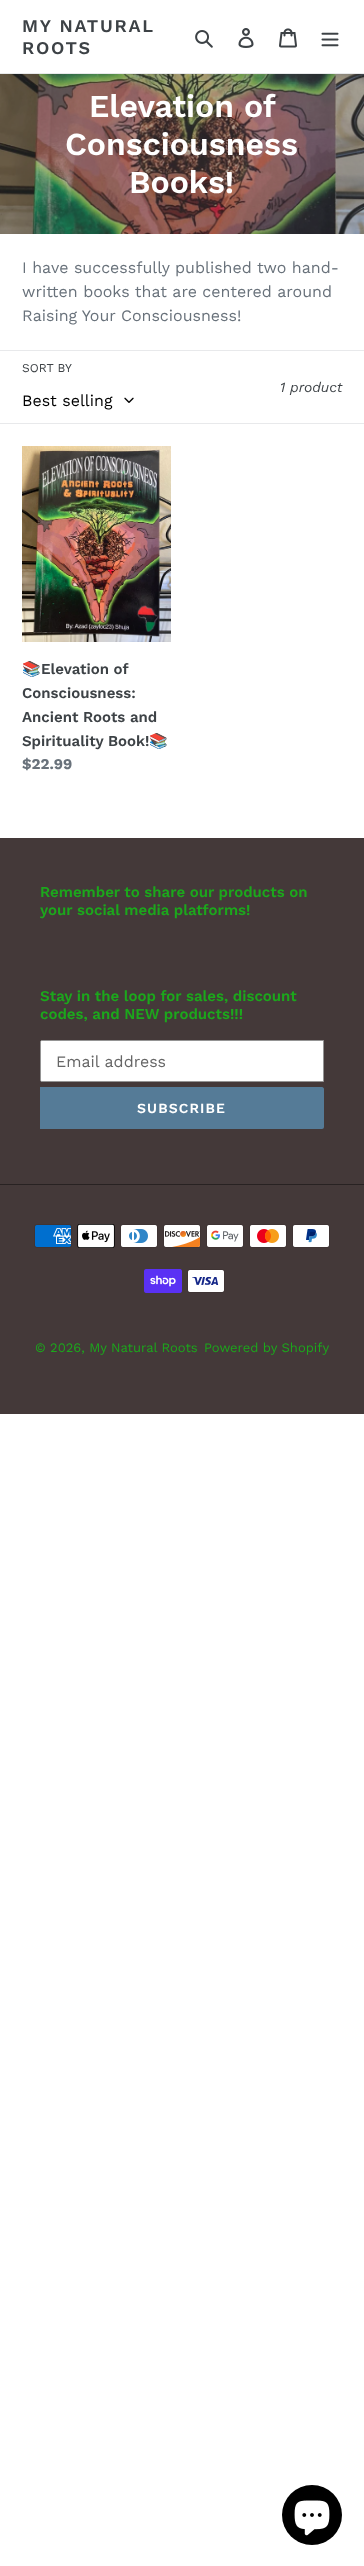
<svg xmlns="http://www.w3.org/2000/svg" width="364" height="2566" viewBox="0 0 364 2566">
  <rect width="100%" height="100%" fill="#ffffff"/>
  <rect x="0" y="73" width="364" height="1" fill="#e8e9eb"/>
  <text x="22" y="32" font-family="Work Sans" font-size="18" font-weight="600" letter-spacing="1.75" fill="#3d4246">MY NATURAL</text>
  <text x="22" y="54" font-family="Work Sans" font-size="18" font-weight="600" letter-spacing="1.75" fill="#3d4246">ROOTS</text>
  <image x="195" y="30" width="18" height="18" href="img1.png"/>
  <image x="238" y="28" width="16" height="20" href="img2.png"/>
  <image x="279" y="28" width="18" height="20" href="img3.png"/>
  <image x="321" y="32" width="18" height="15" href="img4.png"/>
  <image x="0" y="74" width="364" height="160" href="img5.png"/>
  <text x="89" y="117" font-family="Work Sans" font-size="32" font-weight="600" fill="#ffffff">Elevation of</text>
  <text x="65" y="155" font-family="Work Sans" font-size="32" font-weight="600" fill="#ffffff">Consciousness</text>
  <text x="129" y="193" font-family="Work Sans" font-size="32" font-weight="600" fill="#ffffff">Books!</text>
  <text x="22" y="273" font-family="Work Sans" font-size="16" fill="#69727b">I have successfully published two hand-</text>
  <text x="22" y="297" font-family="Work Sans" font-size="16" fill="#69727b">written books that are centered around</text>
  <text x="22" y="321" font-family="Work Sans" font-size="16" fill="#69727b">Raising Your Consciousness!</text>
  <rect x="0" y="350" width="364" height="1" fill="#e8e9eb"/>
  <rect x="0" y="423" width="364" height="1" fill="#e8e9eb"/>
  <text x="22" y="372" font-family="Work Sans" font-size="12" fill="#3d4246">SORT BY</text>
  <text x="22" y="406" font-family="Work Sans" font-size="16" fill="#000000">Best selling</text>
  <image x="124" y="397" width="10" height="6" href="img6.png"/>
  <text x="280" y="392" font-family="Work Sans" font-size="14" font-style="italic" fill="#3d4246">1 product</text>
  <image x="22" y="446" width="149" height="196" href="img7.png"/>
  <text x="22" y="674" font-family="Noto Color Emoji" font-size="15" font-weight="bold" fill="#3d4246">📚</text>
  <text x="41" y="674" font-family="Work Sans" font-size="15" font-weight="600" fill="#3d4246">Elevation of</text>
  <text x="22" y="698" font-family="Work Sans" font-size="15" font-weight="600" fill="#3d4246">Consciousness:</text>
  <text x="22" y="722" font-family="Work Sans" font-size="15" font-weight="600" fill="#3d4246">Ancient Roots and</text>
  <text x="22" y="746" font-family="Work Sans" font-size="15" font-weight="600" fill="#3d4246">Spirituality Book!</text>
  <text x="149" y="746" font-family="Noto Color Emoji" font-size="15" font-weight="bold" fill="#3d4246">📚</text>
  <text x="22" y="769" font-family="Work Sans" font-size="15" font-weight="bold" fill="#69727b">$22.99</text>
  <rect x="0" y="838" width="364" height="576" fill="#443939"/>
  <text x="40" y="897" font-family="Work Sans" font-size="15" font-weight="600" fill="#1ca71c">Remember to share our products on</text>
  <text x="40" y="915" font-family="Work Sans" font-size="15" font-weight="600" fill="#1ca71c">your social media platforms!</text>
  <text x="40" y="1001" font-family="Work Sans" font-size="15" font-weight="600" fill="#1ca71c">Stay in the loop for sales, discount</text>
  <text x="40" y="1019" font-family="Work Sans" font-size="15" font-weight="600" fill="#1ca71c">codes, and NEW products!!!</text>
  <path d="M42 1040.5H323.5V1081.5H42C41 1081.5 40.5 1081 40.5 1080V1042C40.5 1041 41 1040.5 42 1040.5Z" fill="#ffffff" stroke="#949494"/>
  <text x="56" y="1067" font-family="Work Sans" font-size="16" fill="#666666">Email address</text>
  <path d="M40 1087H322C323 1087 324 1088 324 1089V1127C324 1128 323 1129 322 1129H40Z" fill="#557b97"/>
  <text x="137" y="1113" font-family="Work Sans" font-size="14" font-weight="600" letter-spacing="1.1" fill="#ffffff">SUBSCRIBE</text>
  <rect x="0" y="1184" width="364" height="1" fill="#282222"/>
  <image x="34" y="1224" width="38" height="24" href="img8.png"/>
  <image x="77" y="1224" width="38" height="24" href="img9.png"/>
  <image x="120" y="1224" width="38" height="24" href="img10.png"/>
  <image x="163" y="1224" width="38" height="24" href="img11.png"/>
  <image x="206" y="1224" width="38" height="24" href="img12.png"/>
  <image x="249" y="1224" width="38" height="24" href="img13.png"/>
  <image x="292" y="1224" width="38" height="24" href="img14.png"/>
  <image x="144" y="1269" width="38" height="24" href="img15.png"/>
  <image x="187" y="1269" width="38" height="24" href="img16.png"/>
  <text x="35" y="1352" font-family="Work Sans" font-size="13" fill="#1ca71c">© 2026, My Natural Roots</text>
  <text x="204" y="1352" font-family="Work Sans" font-size="13" fill="#1ca71c">Powered by Shopify</text>
  <circle cx="312" cy="2515" r="30" fill="#000000"/>
  <image x="294" y="2500" width="36" height="36" href="img17.png"/>
</svg>
